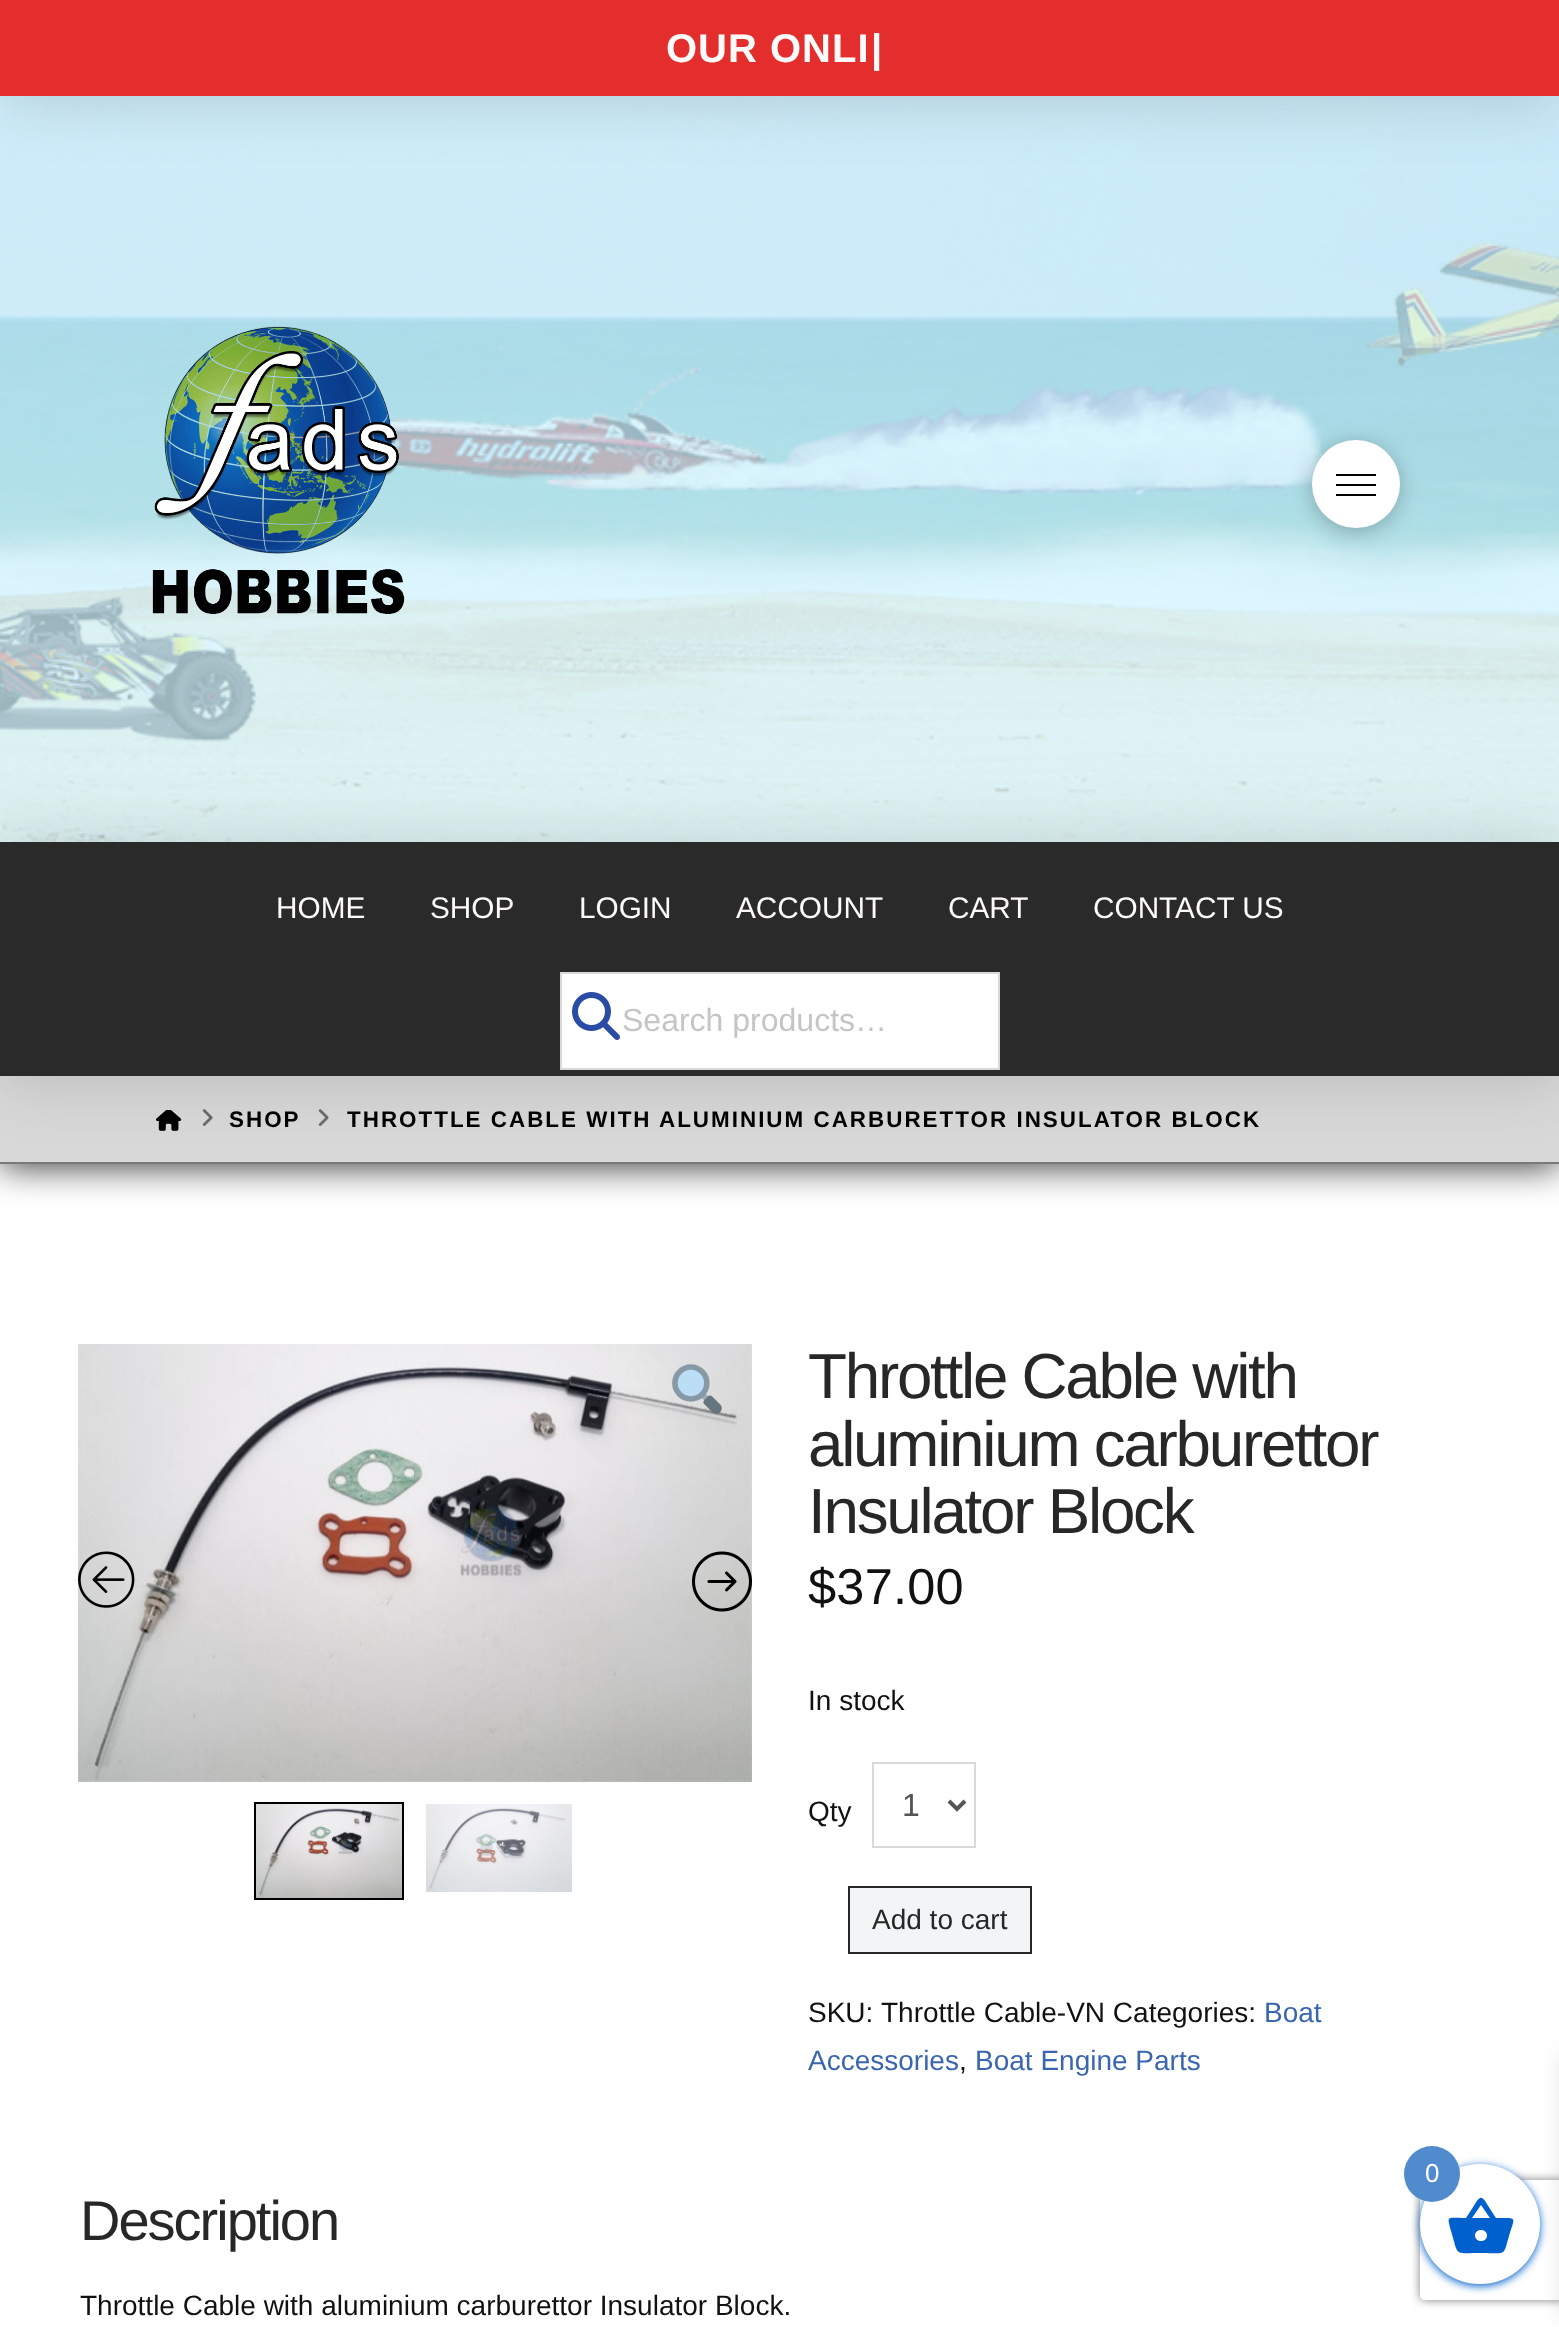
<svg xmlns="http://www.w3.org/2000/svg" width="1559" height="2327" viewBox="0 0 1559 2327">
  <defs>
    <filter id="blur1" x="-50%" y="-200%" width="200%" height="500%"><feGaussianBlur stdDeviation="32"/></filter>
    <filter id="blur2" x="-50%" y="-200%" width="200%" height="500%"><feGaussianBlur stdDeviation="10.5"/></filter>
    <filter id="blur3" x="-50%" y="-200%" width="200%" height="500%"><feGaussianBlur stdDeviation="18"/></filter>
    <filter id="blur4" x="-50%" y="-200%" width="200%" height="500%"><feGaussianBlur stdDeviation="4"/></filter>
    <filter id="blur5" x="-50%" y="-200%" width="200%" height="500%"><feGaussianBlur stdDeviation="10"/></filter>
    <clipPath id="clip1"><path d="M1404 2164H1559V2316H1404ZM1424 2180H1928C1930 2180 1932 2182 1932 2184V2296C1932 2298 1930 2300 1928 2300H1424C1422 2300 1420 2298 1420 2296V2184C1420 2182 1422 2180 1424 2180Z" clip-rule="evenodd"/></clipPath>
    <filter id="blur6" x="-50%" y="-200%" width="200%" height="500%"><feGaussianBlur stdDeviation="5"/></filter>
  </defs>
  <rect width="100%" height="100%" fill="#ffffff"/>
  <image x="0" y="96" width="1559" height="746" href="img1.png"/>
  <rect x="0" y="4" width="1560" height="96" fill="#000000" fill-opacity="0.15" filter="url(#blur1)"/>
  <rect x="0" y="0" width="1559" height="96" fill="#e42e2e"/>
  <text x="666" y="62" font-family="Liberation Sans" font-size="40" font-weight="bold" letter-spacing="1" fill="#fffafa">OUR ONLI</text>
  <text x="871" y="62" font-family="Liberation Sans" font-size="40" font-weight="bold" letter-spacing="1" fill="#fffafa">|</text>
  <image x="152" y="326" width="253" height="288" href="img2.png"/>
  <rect x="1312" y="444" width="88" height="88" rx="44" fill="#000000" fill-opacity="0.25" filter="url(#blur2)"/>
  <circle cx="1356" cy="484" r="44" fill="#ffffff"/>
  <rect x="1336" y="474" width="40" height="2" fill="#000000"/>
  <rect x="1336" y="484" width="40" height="2" fill="#000000"/>
  <rect x="1336" y="494" width="40" height="2" fill="#000000"/>
  <rect x="0" y="1078" width="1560" height="88" fill="#000000" fill-opacity="0.8" filter="url(#blur3)"/>
  <rect x="0" y="1076" width="1559" height="86" fill="#d8d8d8"/>
  <rect x="0" y="1162" width="1559" height="2" fill="#797979"/>
  <image x="156" y="1110" width="26" height="21" href="img4.png"/>
  <image x="202" y="1109" width="11" height="17" href="img5.png"/>
  <image x="318" y="1109" width="11" height="17" href="img5.png"/>
  <rect x="0" y="846" width="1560" height="234" fill="#000000" fill-opacity="0.15" filter="url(#blur1)"/>
  <rect x="0" y="842" width="1559" height="234" fill="#2a2a2a"/>
  <text x="276" y="918" font-family="Liberation Sans" font-size="29.75" fill="#fffafa">HOME</text>
  <text x="430" y="918" font-family="Liberation Sans" font-size="29.75" fill="#fffafa">SHOP</text>
  <text x="579" y="918" font-family="Liberation Sans" font-size="29.75" fill="#fffafa">LOGIN</text>
  <text x="736" y="918" font-family="Liberation Sans" font-size="29.75" fill="#fffafa">ACCOUNT</text>
  <text x="948" y="918" font-family="Liberation Sans" font-size="29.75" fill="#fffafa">CART</text>
  <text x="1093" y="918" font-family="Liberation Sans" font-size="29.75" fill="#fffafa">CONTACT US</text>
  <rect x="561" y="973" width="438" height="96" fill="#ffffff" stroke="#d9d9d9" stroke-width="2"/>
  <image x="572" y="992" width="48" height="48" href="img3.png"/>
  <text x="622" y="1031" font-family="Liberation Sans" font-size="32" fill="#c5c5c5">Search products…</text>
  <text x="229" y="1127" font-family="Liberation Sans" font-size="22.4" font-weight="bold" letter-spacing="2.02" fill="#000000">SHOP</text>
  <text x="347" y="1127" font-family="Liberation Sans" font-size="22.4" font-weight="bold" letter-spacing="2.02" fill="#000000">THROTTLE CABLE WITH ALUMINIUM CARBURETTOR INSULATOR BLOCK</text>
  <image x="78" y="1344" width="674" height="438" href="img6.png"/>
  <image x="672" y="1364" width="50" height="50" href="img7.png"/>
  <image x="78" y="1551" width="57" height="57" href="img8.png"/>
  <image x="692" y="1551" width="60" height="61" href="img9.png"/>
  <rect x="255" y="1803" width="148" height="96" fill="none" stroke="#000000" stroke-width="2"/>
  <image x="256" y="1804" width="146" height="94" href="img10.png"/>
  <image x="426" y="1804" width="146" height="88" href="img11.png"/>
  <text x="808" y="1398" font-family="Liberation Sans" font-size="63.75" letter-spacing="-2.25" fill="#272727">Throttle Cable with</text>
  <text x="808" y="1466" font-family="Liberation Sans" font-size="63.75" letter-spacing="-2.25" fill="#272727">aluminium carburettor</text>
  <text x="808" y="1533" font-family="Liberation Sans" font-size="63.75" letter-spacing="-2.25" fill="#272727">Insulator Block</text>
  <text x="808" y="1604" font-family="Liberation Sans" font-size="50.5" letter-spacing="0.25" fill="#111111">$37.00</text>
  <text x="808" y="1710" font-family="Liberation Sans" font-size="28" fill="#111111">In stock</text>
  <text x="808" y="1821" font-family="Liberation Sans" font-size="28" fill="#111111">Qty</text>
  <rect x="873" y="1763" width="102" height="84" fill="none" stroke="#d9d9d9" stroke-width="2"/>
  <path d="M949 1801L957 1809L965 1801" fill="none" stroke="#555555" stroke-width="4"/>
  <text x="902" y="1816" font-family="Liberation Sans" font-size="32" fill="#555555">1</text>
  <rect x="849" y="1887" width="182" height="66" fill="#f2f5f6" stroke="#272727" stroke-width="2"/>
  <text x="872" y="1929" font-family="Liberation Sans" font-size="28" fill="#272727">Add to cart</text>
  <text x="808" y="2022" font-family="Liberation Sans" font-size="28" fill="#111111">SKU:</text>
  <text x="881" y="2022" font-family="Liberation Sans" font-size="28" fill="#111111">Throttle Cable-VN Categories:</text>
  <text x="1264" y="2022" font-family="Liberation Sans" font-size="28" fill="#3a66b1">Boat</text>
  <text x="808" y="2070" font-family="Liberation Sans" font-size="28" fill="#3a66b1">Accessories</text>
  <text x="959" y="2070" font-family="Liberation Sans" font-size="28" fill="#111111">,</text>
  <text x="975" y="2070" font-family="Liberation Sans" font-size="28" fill="#3a66b1">Boat Engine Parts</text>
  <text x="80" y="2240" font-family="Liberation Sans" font-size="56" letter-spacing="-2" fill="#272727">Description</text>
  <text x="80" y="2315" font-family="Liberation Sans" font-size="28" fill="#111111">Throttle Cable with aluminium carburettor Insulator Block.</text>
  <rect x="1420" y="2166" width="120" height="120" rx="60" fill="#0060ce" filter="url(#blur4)"/>
  <rect x="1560" y="2054" width="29" height="264" fill="#000000" fill-opacity="0.1" filter="url(#blur5)"/>
  <g clip-path="url(#clip1)">
    <rect x="1420" y="2180" width="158" height="120" rx="4" fill="#808080" filter="url(#blur6)"/>
  </g>
  <circle cx="1480" cy="2224" r="60" fill="#ffffff"/>
  <path d="M1481 2241C1489 2241 1489 2230 1481 2230C1473 2230 1473 2241 1481 2241ZM1472 2218H1490L1481 2205ZM1496 2218C1518 2218 1515 2216 1509 2236C1503 2257 1507 2253 1481 2253C1453 2253 1459 2257 1451 2231C1447 2215 1446 2218 1466 2218C1484 2191 1478 2191 1496 2218Z" fill="#0060ce"/>
  <circle cx="1432" cy="2174" r="28" fill="#508bce"/>
  <text x="1425" y="2182" font-family="Liberation Sans" font-size="26" fill="#fffafa">0</text>
</svg>
